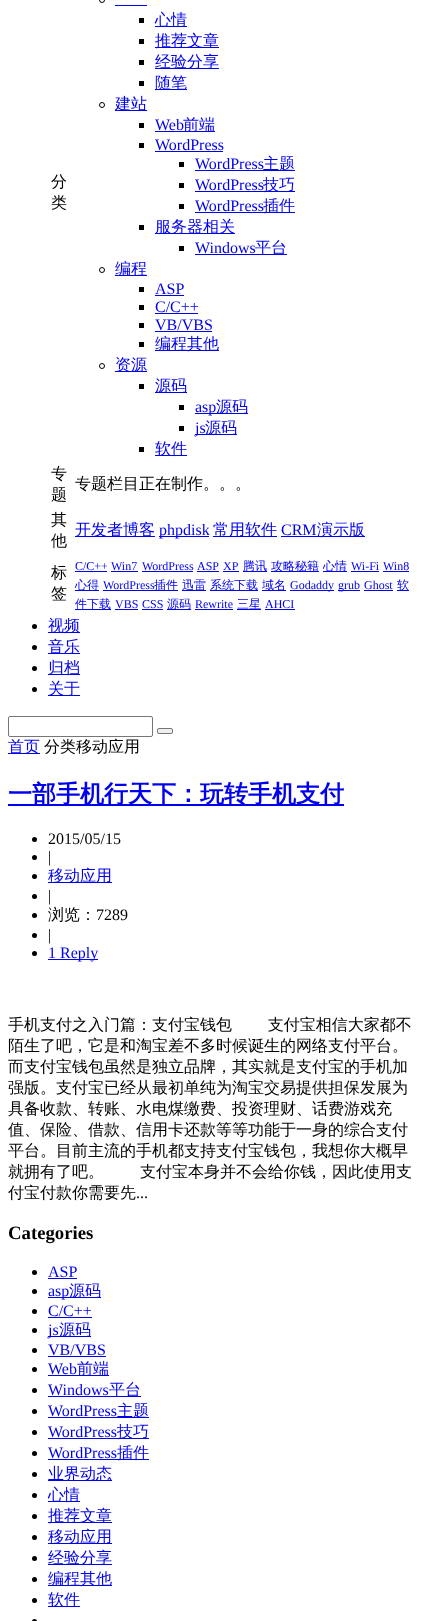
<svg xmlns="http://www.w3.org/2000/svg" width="429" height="1621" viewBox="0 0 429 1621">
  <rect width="100%" height="100%" fill="#ffffff"/>
  <text x="51" y="187" font-family="WenQuanYi Zen Hei" font-size="16" font-weight="500" fill="#000000">分</text>
  <text x="51" y="208" font-family="WenQuanYi Zen Hei" font-size="16" font-weight="500" fill="#000000">类</text>
  <circle cx="102" cy="0" r="2.5" fill="none" stroke="#000000"/>
  <rect x="115" y="5" width="32" height="1" fill="#0000ee"/>
  <rect x="139" y="18" width="5" height="5" fill="#000000"/>
  <rect x="155" y="26" width="32" height="1" fill="#0000ee"/>
  <text x="155" y="25" font-family="WenQuanYi Zen Hei" font-size="16" font-weight="500" fill="#0000ee">心情</text>
  <rect x="139" y="39" width="5" height="5" fill="#000000"/>
  <rect x="155" y="47" width="64" height="1" fill="#0000ee"/>
  <text x="155" y="46" font-family="WenQuanYi Zen Hei" font-size="16" font-weight="500" fill="#0000ee">推荐文章</text>
  <rect x="139" y="60" width="5" height="5" fill="#000000"/>
  <rect x="155" y="68" width="64" height="1" fill="#0000ee"/>
  <text x="155" y="67" font-family="WenQuanYi Zen Hei" font-size="16" font-weight="500" fill="#0000ee">经验分享</text>
  <rect x="139" y="81" width="5" height="5" fill="#000000"/>
  <rect x="155" y="89" width="32" height="1" fill="#0000ee"/>
  <text x="155" y="88" font-family="WenQuanYi Zen Hei" font-size="16" font-weight="500" fill="#0000ee">随笔</text>
  <circle cx="102" cy="105" r="2.5" fill="none" stroke="#000000"/>
  <rect x="115" y="110" width="32" height="1" fill="#0000ee"/>
  <text x="115" y="109" font-family="WenQuanYi Zen Hei" font-size="16" font-weight="500" fill="#0000ee">建站</text>
  <rect x="139" y="123" width="5" height="5" fill="#000000"/>
  <text x="155" y="130" font-family="Liberation Serif" font-size="16" fill="#0000ee">Web</text>
  <rect x="155" y="131" width="60" height="1" fill="#0000ee"/>
  <text x="183" y="130" font-family="WenQuanYi Zen Hei" font-size="16" font-weight="500" fill="#0000ee">前端</text>
  <rect x="139" y="143" width="5" height="5" fill="#000000"/>
  <text x="155" y="150" font-family="Liberation Serif" font-size="16" fill="#0000ee">WordPress</text>
  <rect x="155" y="151" width="68" height="1" fill="#0000ee"/>
  <rect x="179" y="162" width="5" height="5" fill="#000000"/>
  <text x="195" y="169" font-family="Liberation Serif" font-size="16" fill="#0000ee">WordPress</text>
  <rect x="195" y="170" width="100" height="1" fill="#0000ee"/>
  <text x="263" y="169" font-family="WenQuanYi Zen Hei" font-size="16" font-weight="500" fill="#0000ee">主题</text>
  <rect x="179" y="183" width="5" height="5" fill="#000000"/>
  <text x="195" y="190" font-family="Liberation Serif" font-size="16" fill="#0000ee">WordPress</text>
  <rect x="195" y="191" width="100" height="1" fill="#0000ee"/>
  <text x="263" y="190" font-family="WenQuanYi Zen Hei" font-size="16" font-weight="500" fill="#0000ee">技巧</text>
  <rect x="179" y="204" width="5" height="5" fill="#000000"/>
  <text x="195" y="211" font-family="Liberation Serif" font-size="16" fill="#0000ee">WordPress</text>
  <rect x="195" y="212" width="100" height="1" fill="#0000ee"/>
  <text x="263" y="211" font-family="WenQuanYi Zen Hei" font-size="16" font-weight="500" fill="#0000ee">插件</text>
  <rect x="139" y="225" width="5" height="5" fill="#000000"/>
  <rect x="155" y="233" width="80" height="1" fill="#0000ee"/>
  <text x="155" y="232" font-family="WenQuanYi Zen Hei" font-size="16" font-weight="500" fill="#0000ee">服务器相关</text>
  <rect x="179" y="246" width="5" height="5" fill="#000000"/>
  <text x="195" y="253" font-family="Liberation Serif" font-size="16" fill="#0000ee">Windows</text>
  <rect x="195" y="254" width="92" height="1" fill="#0000ee"/>
  <text x="255" y="253" font-family="WenQuanYi Zen Hei" font-size="16" font-weight="500" fill="#0000ee">平台</text>
  <circle cx="102" cy="270" r="2.5" fill="none" stroke="#000000"/>
  <rect x="115" y="275" width="32" height="1" fill="#0000ee"/>
  <text x="115" y="274" font-family="WenQuanYi Zen Hei" font-size="16" font-weight="500" fill="#0000ee">编程</text>
  <rect x="139" y="287" width="5" height="5" fill="#000000"/>
  <text x="155" y="294" font-family="Liberation Serif" font-size="16" fill="#0000ee">ASP</text>
  <rect x="155" y="295" width="29" height="1" fill="#0000ee"/>
  <rect x="139" y="305" width="5" height="5" fill="#000000"/>
  <text x="155" y="312" font-family="Liberation Serif" font-size="16" fill="#0000ee">C/C++</text>
  <rect x="155" y="313" width="43" height="1" fill="#0000ee"/>
  <rect x="139" y="323" width="5" height="5" fill="#000000"/>
  <text x="155" y="330" font-family="Liberation Serif" font-size="16" fill="#0000ee">VB/VBS</text>
  <rect x="155" y="331" width="57" height="1" fill="#0000ee"/>
  <rect x="139" y="342" width="5" height="5" fill="#000000"/>
  <rect x="155" y="350" width="64" height="1" fill="#0000ee"/>
  <text x="155" y="349" font-family="WenQuanYi Zen Hei" font-size="16" font-weight="500" fill="#0000ee">编程其他</text>
  <circle cx="102" cy="366" r="2.5" fill="none" stroke="#000000"/>
  <rect x="115" y="371" width="32" height="1" fill="#0000ee"/>
  <text x="115" y="370" font-family="WenQuanYi Zen Hei" font-size="16" font-weight="500" fill="#0000ee">资源</text>
  <rect x="139" y="384" width="5" height="5" fill="#000000"/>
  <rect x="155" y="392" width="32" height="1" fill="#0000ee"/>
  <text x="155" y="391" font-family="WenQuanYi Zen Hei" font-size="16" font-weight="500" fill="#0000ee">源码</text>
  <rect x="179" y="405" width="5" height="5" fill="#000000"/>
  <rect x="195" y="413" width="53" height="1" fill="#0000ee"/>
  <text x="195" y="412" font-family="Liberation Serif" font-size="16" fill="#0000ee">asp</text>
  <text x="216" y="412" font-family="WenQuanYi Zen Hei" font-size="16" font-weight="500" fill="#0000ee">源码</text>
  <rect x="179" y="426" width="5" height="5" fill="#000000"/>
  <rect x="195" y="434" width="42" height="1" fill="#0000ee"/>
  <text x="195" y="433" font-family="Liberation Serif" font-size="16" fill="#0000ee">js</text>
  <text x="205" y="433" font-family="WenQuanYi Zen Hei" font-size="16" font-weight="500" fill="#0000ee">源码</text>
  <rect x="139" y="447" width="5" height="5" fill="#000000"/>
  <rect x="155" y="455" width="32" height="1" fill="#0000ee"/>
  <text x="155" y="454" font-family="WenQuanYi Zen Hei" font-size="16" font-weight="500" fill="#0000ee">软件</text>
  <text x="51" y="479" font-family="WenQuanYi Zen Hei" font-size="16" font-weight="500" fill="#000000">专</text>
  <text x="51" y="500" font-family="WenQuanYi Zen Hei" font-size="16" font-weight="500" fill="#000000">题</text>
  <text x="75" y="489" font-family="WenQuanYi Zen Hei" font-size="16" font-weight="500" fill="#000000">专题栏目正在制作。。。</text>
  <text x="51" y="525" font-family="WenQuanYi Zen Hei" font-size="16" font-weight="500" fill="#000000">其</text>
  <text x="51" y="546" font-family="WenQuanYi Zen Hei" font-size="16" font-weight="500" fill="#000000">他</text>
  <rect x="75" y="536" width="80" height="1" fill="#0000ee"/>
  <text x="75" y="535" font-family="WenQuanYi Zen Hei" font-size="16" font-weight="500" fill="#0000ee">开发者博客</text>
  <rect x="159" y="536" width="50" height="1" fill="#0000ee"/>
  <text x="159" y="535" font-family="Liberation Serif" font-size="16" fill="#0000ee">phpdisk</text>
  <rect x="213" y="536" width="64" height="1" fill="#0000ee"/>
  <text x="213" y="535" font-family="WenQuanYi Zen Hei" font-size="16" font-weight="500" fill="#0000ee">常用软件</text>
  <text x="281" y="535" font-family="Liberation Serif" font-size="16" fill="#0000ee">CRM</text>
  <rect x="281" y="536" width="84" height="1" fill="#0000ee"/>
  <text x="317" y="535" font-family="WenQuanYi Zen Hei" font-size="16" font-weight="500" fill="#0000ee">演示版</text>
  <text x="51" y="578" font-family="WenQuanYi Zen Hei" font-size="16" font-weight="500" fill="#000000">标</text>
  <text x="51" y="599" font-family="WenQuanYi Zen Hei" font-size="16" font-weight="500" fill="#000000">签</text>
  <text x="75" y="570" font-family="Liberation Serif" font-size="12" fill="#0000ee">C/C++</text>
  <rect x="75" y="571" width="32" height="1" fill="#0000ee"/>
  <text x="111" y="570" font-family="Liberation Serif" font-size="12" fill="#0000ee">Win7</text>
  <rect x="111" y="571" width="27" height="1" fill="#0000ee"/>
  <text x="142" y="570" font-family="Liberation Serif" font-size="12" fill="#0000ee">WordPress</text>
  <rect x="142" y="571" width="51" height="1" fill="#0000ee"/>
  <text x="197" y="570" font-family="Liberation Serif" font-size="12" fill="#0000ee">ASP</text>
  <rect x="197" y="571" width="22" height="1" fill="#0000ee"/>
  <text x="223" y="570" font-family="Liberation Serif" font-size="12" fill="#0000ee">XP</text>
  <rect x="223" y="571" width="16" height="1" fill="#0000ee"/>
  <rect x="243" y="571" width="24" height="1" fill="#0000ee"/>
  <text x="243" y="570" font-family="WenQuanYi Zen Hei" font-size="12" font-weight="500" fill="#0000ee">腾讯</text>
  <rect x="271" y="571" width="48" height="1" fill="#0000ee"/>
  <text x="271" y="570" font-family="WenQuanYi Zen Hei" font-size="12" font-weight="500" fill="#0000ee">攻略秘籍</text>
  <rect x="323" y="571" width="24" height="1" fill="#0000ee"/>
  <text x="323" y="570" font-family="WenQuanYi Zen Hei" font-size="12" font-weight="500" fill="#0000ee">心情</text>
  <text x="351" y="570" font-family="Liberation Serif" font-size="12" fill="#0000ee">Wi-Fi</text>
  <rect x="351" y="571" width="28" height="1" fill="#0000ee"/>
  <text x="383" y="570" font-family="Liberation Serif" font-size="12" fill="#0000ee">Win8</text>
  <rect x="383" y="571" width="26" height="1" fill="#0000ee"/>
  <rect x="75" y="590" width="24" height="1" fill="#0000ee"/>
  <text x="75" y="589" font-family="WenQuanYi Zen Hei" font-size="12" font-weight="500" fill="#0000ee">心得</text>
  <text x="103" y="589" font-family="Liberation Serif" font-size="12" fill="#0000ee">WordPress</text>
  <rect x="103" y="590" width="75" height="1" fill="#0000ee"/>
  <text x="154" y="589" font-family="WenQuanYi Zen Hei" font-size="12" font-weight="500" fill="#0000ee">插件</text>
  <rect x="182" y="590" width="24" height="1" fill="#0000ee"/>
  <text x="182" y="589" font-family="WenQuanYi Zen Hei" font-size="12" font-weight="500" fill="#0000ee">迅雷</text>
  <rect x="210" y="590" width="48" height="1" fill="#0000ee"/>
  <text x="210" y="589" font-family="WenQuanYi Zen Hei" font-size="12" font-weight="500" fill="#0000ee">系统下载</text>
  <rect x="262" y="590" width="24" height="1" fill="#0000ee"/>
  <text x="262" y="589" font-family="WenQuanYi Zen Hei" font-size="12" font-weight="500" fill="#0000ee">域名</text>
  <rect x="290" y="590" width="44" height="1" fill="#0000ee"/>
  <text x="290" y="589" font-family="Liberation Serif" font-size="12" fill="#0000ee">Godaddy</text>
  <rect x="338" y="590" width="22" height="1" fill="#0000ee"/>
  <text x="338" y="589" font-family="Liberation Serif" font-size="12" fill="#0000ee">grub</text>
  <text x="364" y="589" font-family="Liberation Serif" font-size="12" fill="#0000ee">Ghost</text>
  <rect x="364" y="590" width="29" height="1" fill="#0000ee"/>
  <rect x="397" y="590" width="12" height="1" fill="#0000ee"/>
  <text x="397" y="589" font-family="WenQuanYi Zen Hei" font-size="12" font-weight="500" fill="#0000ee">软</text>
  <rect x="75" y="609" width="36" height="1" fill="#0000ee"/>
  <text x="75" y="608" font-family="WenQuanYi Zen Hei" font-size="12" font-weight="500" fill="#0000ee">件下载</text>
  <text x="115" y="608" font-family="Liberation Serif" font-size="12" fill="#0000ee">VBS</text>
  <rect x="115" y="609" width="23" height="1" fill="#0000ee"/>
  <text x="142" y="608" font-family="Liberation Serif" font-size="12" fill="#0000ee">CSS</text>
  <rect x="142" y="609" width="21" height="1" fill="#0000ee"/>
  <rect x="167" y="609" width="24" height="1" fill="#0000ee"/>
  <text x="167" y="608" font-family="WenQuanYi Zen Hei" font-size="12" font-weight="500" fill="#0000ee">源码</text>
  <text x="195" y="608" font-family="Liberation Serif" font-size="12" fill="#0000ee">Rewrite</text>
  <rect x="195" y="609" width="38" height="1" fill="#0000ee"/>
  <text x="237" y="608" font-family="WenQuanYi Zen Hei" font-size="12" font-weight="500" fill="#0000ee">三星</text>
  <rect x="237" y="609" width="24" height="1" fill="#0000ee"/>
  <text x="265" y="608" font-family="Liberation Serif" font-size="12" fill="#0000ee">AHCI</text>
  <rect x="265" y="609" width="30" height="1" fill="#0000ee"/>
  <circle cx="34.5" cy="626.5" r="2.5" fill="#000000"/>
  <rect x="48" y="632" width="32" height="1" fill="#0000ee"/>
  <text x="48" y="631" font-family="WenQuanYi Zen Hei" font-size="16" font-weight="500" fill="#0000ee">视频</text>
  <circle cx="34.5" cy="647.5" r="2.5" fill="#000000"/>
  <rect x="48" y="653" width="32" height="1" fill="#0000ee"/>
  <text x="48" y="652" font-family="WenQuanYi Zen Hei" font-size="16" font-weight="500" fill="#0000ee">音乐</text>
  <circle cx="34.5" cy="668.5" r="2.5" fill="#000000"/>
  <rect x="48" y="674" width="32" height="1" fill="#0000ee"/>
  <text x="48" y="673" font-family="WenQuanYi Zen Hei" font-size="16" font-weight="500" fill="#0000ee">归档</text>
  <circle cx="34.5" cy="689.5" r="2.5" fill="#000000"/>
  <rect x="48" y="695" width="32" height="1" fill="#0000ee"/>
  <text x="48" y="694" font-family="WenQuanYi Zen Hei" font-size="16" font-weight="500" fill="#0000ee">关于</text>
  <rect x="8.5" y="716.5" width="144" height="20" rx="1.5" fill="none" stroke="#767676"/>
  <rect x="157.5" y="728.5" width="15" height="5" rx="1.5" fill="#efefef" stroke="#767676"/>
  <rect x="8" y="753" width="32" height="1" fill="#0000ee"/>
  <text x="8" y="752" font-family="WenQuanYi Zen Hei" font-size="16" font-weight="500" fill="#0000ee">首页</text>
  <text x="44" y="752" font-family="WenQuanYi Zen Hei" font-size="16" font-weight="500" fill="#000000">分类移动应用</text>
  <rect x="8" y="804" width="336" height="2" fill="#0000ee"/>
  <text x="8" y="802" font-family="WenQuanYi Zen Hei" font-size="24" font-weight="bold" fill="#0000ee">一部手机行天下：玩转手机支付</text>
  <circle cx="34.5" cy="839.5" r="2.5" fill="#000000"/>
  <text x="48" y="844" font-family="Liberation Serif" font-size="16" fill="#000000">2015/05/15</text>
  <circle cx="34.5" cy="857.5" r="2.5" fill="#000000"/>
  <text x="48" y="862" font-family="Liberation Serif" font-size="16" fill="#000000">|</text>
  <circle cx="34.5" cy="876.5" r="2.5" fill="#000000"/>
  <rect x="48" y="882" width="64" height="1" fill="#0000ee"/>
  <text x="48" y="881" font-family="WenQuanYi Zen Hei" font-size="16" font-weight="500" fill="#0000ee">移动应用</text>
  <circle cx="34.5" cy="896.5" r="2.5" fill="#000000"/>
  <text x="48" y="901" font-family="Liberation Serif" font-size="16" fill="#000000">|</text>
  <circle cx="34.5" cy="915.5" r="2.5" fill="#000000"/>
  <text x="48" y="920" font-family="WenQuanYi Zen Hei" font-size="16" font-weight="500" fill="#000000">浏览：</text>
  <text x="96" y="920" font-family="Liberation Serif" font-size="16" fill="#000000">7289</text>
  <circle cx="34.5" cy="935.5" r="2.5" fill="#000000"/>
  <text x="48" y="940" font-family="Liberation Serif" font-size="16" fill="#000000">|</text>
  <circle cx="34.5" cy="953.5" r="2.5" fill="#000000"/>
  <rect x="48" y="959" width="50" height="1" fill="#0000ee"/>
  <text x="48" y="958" font-family="Liberation Serif" font-size="16" fill="#0000ee">1 Reply</text>
  <text x="8" y="1030" word-spacing="-1" font-family="WenQuanYi Zen Hei" font-size="16" font-weight="500" fill="#000000">手机支付之入门篇：支付宝钱包 　　支付宝相信大家都不</text>
  <text x="8" y="1051" font-family="WenQuanYi Zen Hei" font-size="16" font-weight="500" fill="#000000">陌生了吧，它是和淘宝差不多时候诞生的网络支付平台。</text>
  <text x="8" y="1072" font-family="WenQuanYi Zen Hei" font-size="16" font-weight="500" fill="#000000">而支付宝钱包虽然是独立品牌，其实就是支付宝的手机加</text>
  <text x="8" y="1093" font-family="WenQuanYi Zen Hei" font-size="16" font-weight="500" fill="#000000">强版。支付宝已经从最初单纯为淘宝交易提供担保发展为</text>
  <text x="8" y="1114" font-family="WenQuanYi Zen Hei" font-size="16" font-weight="500" fill="#000000">具备收款、转账、水电煤缴费、投资理财、话费游戏充</text>
  <text x="8" y="1135" font-family="WenQuanYi Zen Hei" font-size="16" font-weight="500" fill="#000000">值、保险、借款、信用卡还款等等功能于一身的综合支付</text>
  <text x="8" y="1156" font-family="WenQuanYi Zen Hei" font-size="16" font-weight="500" fill="#000000">平台。目前主流的手机都支持支付宝钱包，我想你大概早</text>
  <text x="8" y="1177" font-family="WenQuanYi Zen Hei" font-size="16" font-weight="500" fill="#000000">就拥有了吧。</text>
  <text x="140" y="1177" font-family="WenQuanYi Zen Hei" font-size="16" font-weight="500" fill="#000000">支付宝本身并不会给你钱，因此使用支</text>
  <text x="8" y="1198" font-family="WenQuanYi Zen Hei" font-size="16" font-weight="500" fill="#000000">付宝付款你需要先</text>
  <text x="136" y="1198" font-family="Liberation Serif" font-size="16" fill="#000000">...</text>
  <text x="8" y="1239" font-family="Liberation Serif" font-size="18.75" font-weight="bold" fill="#000000">Categories</text>
  <circle cx="34.5" cy="1272.5" r="2.5" fill="#000000"/>
  <text x="48" y="1277" font-family="Liberation Serif" font-size="16" fill="#0000ee">ASP</text>
  <rect x="48" y="1278" width="29" height="1" fill="#0000ee"/>
  <circle cx="34.5" cy="1291.5" r="2.5" fill="#000000"/>
  <rect x="48" y="1297" width="53" height="1" fill="#0000ee"/>
  <text x="48" y="1296" font-family="Liberation Serif" font-size="16" fill="#0000ee">asp</text>
  <text x="69" y="1296" font-family="WenQuanYi Zen Hei" font-size="16" font-weight="500" fill="#0000ee">源码</text>
  <circle cx="34.5" cy="1311.5" r="2.5" fill="#000000"/>
  <text x="48" y="1316" font-family="Liberation Serif" font-size="16" fill="#0000ee">C/C++</text>
  <rect x="48" y="1317" width="44" height="1" fill="#0000ee"/>
  <circle cx="34.5" cy="1330.5" r="2.5" fill="#000000"/>
  <rect x="48" y="1336" width="43" height="1" fill="#0000ee"/>
  <text x="48" y="1335" font-family="Liberation Serif" font-size="16" fill="#0000ee">js</text>
  <text x="59" y="1335" font-family="WenQuanYi Zen Hei" font-size="16" font-weight="500" fill="#0000ee">源码</text>
  <circle cx="34.5" cy="1350.5" r="2.5" fill="#000000"/>
  <text x="48" y="1355" font-family="Liberation Serif" font-size="16" fill="#0000ee">VB/VBS</text>
  <rect x="48" y="1356" width="58" height="1" fill="#0000ee"/>
  <circle cx="34.5" cy="1369.5" r="2.5" fill="#000000"/>
  <text x="48" y="1374" font-family="Liberation Serif" font-size="16" fill="#0000ee">Web</text>
  <rect x="48" y="1375" width="61" height="1" fill="#0000ee"/>
  <text x="77" y="1374" font-family="WenQuanYi Zen Hei" font-size="16" font-weight="500" fill="#0000ee">前端</text>
  <circle cx="34.5" cy="1390.5" r="2.5" fill="#000000"/>
  <text x="48" y="1395" font-family="Liberation Serif" font-size="16" fill="#0000ee">Windows</text>
  <rect x="48" y="1396" width="93" height="1" fill="#0000ee"/>
  <text x="109" y="1395" font-family="WenQuanYi Zen Hei" font-size="16" font-weight="500" fill="#0000ee">平台</text>
  <circle cx="34.5" cy="1411.5" r="2.5" fill="#000000"/>
  <text x="48" y="1416" font-family="Liberation Serif" font-size="16" fill="#0000ee">WordPress</text>
  <rect x="48" y="1417" width="101" height="1" fill="#0000ee"/>
  <text x="117" y="1416" font-family="WenQuanYi Zen Hei" font-size="16" font-weight="500" fill="#0000ee">主题</text>
  <circle cx="34.5" cy="1432.5" r="2.5" fill="#000000"/>
  <text x="48" y="1437" font-family="Liberation Serif" font-size="16" fill="#0000ee">WordPress</text>
  <rect x="48" y="1438" width="101" height="1" fill="#0000ee"/>
  <text x="117" y="1437" font-family="WenQuanYi Zen Hei" font-size="16" font-weight="500" fill="#0000ee">技巧</text>
  <circle cx="34.5" cy="1453.5" r="2.5" fill="#000000"/>
  <text x="48" y="1458" font-family="Liberation Serif" font-size="16" fill="#0000ee">WordPress</text>
  <rect x="48" y="1459" width="101" height="1" fill="#0000ee"/>
  <text x="117" y="1458" font-family="WenQuanYi Zen Hei" font-size="16" font-weight="500" fill="#0000ee">插件</text>
  <circle cx="34.5" cy="1474.5" r="2.5" fill="#000000"/>
  <rect x="48" y="1480" width="64" height="1" fill="#0000ee"/>
  <text x="48" y="1479" font-family="WenQuanYi Zen Hei" font-size="16" font-weight="500" fill="#0000ee">业界动态</text>
  <circle cx="34.5" cy="1495.5" r="2.5" fill="#000000"/>
  <rect x="48" y="1501" width="32" height="1" fill="#0000ee"/>
  <text x="48" y="1500" font-family="WenQuanYi Zen Hei" font-size="16" font-weight="500" fill="#0000ee">心情</text>
  <circle cx="34.5" cy="1516.5" r="2.5" fill="#000000"/>
  <rect x="48" y="1522" width="64" height="1" fill="#0000ee"/>
  <text x="48" y="1521" font-family="WenQuanYi Zen Hei" font-size="16" font-weight="500" fill="#0000ee">推荐文章</text>
  <circle cx="34.5" cy="1537.5" r="2.5" fill="#000000"/>
  <rect x="48" y="1543" width="64" height="1" fill="#0000ee"/>
  <text x="48" y="1542" font-family="WenQuanYi Zen Hei" font-size="16" font-weight="500" fill="#0000ee">移动应用</text>
  <circle cx="34.5" cy="1558.5" r="2.5" fill="#000000"/>
  <rect x="48" y="1564" width="64" height="1" fill="#0000ee"/>
  <text x="48" y="1563" font-family="WenQuanYi Zen Hei" font-size="16" font-weight="500" fill="#0000ee">经验分享</text>
  <circle cx="34.5" cy="1579.5" r="2.5" fill="#000000"/>
  <rect x="48" y="1585" width="64" height="1" fill="#0000ee"/>
  <text x="48" y="1584" font-family="WenQuanYi Zen Hei" font-size="16" font-weight="500" fill="#0000ee">编程其他</text>
  <circle cx="34.5" cy="1600.5" r="2.5" fill="#000000"/>
  <rect x="48" y="1606" width="32" height="1" fill="#0000ee"/>
  <text x="48" y="1605" font-family="WenQuanYi Zen Hei" font-size="16" font-weight="500" fill="#0000ee">软件</text>
  <circle cx="34.5" cy="1621.5" r="2.5" fill="#000000"/>
</svg>
